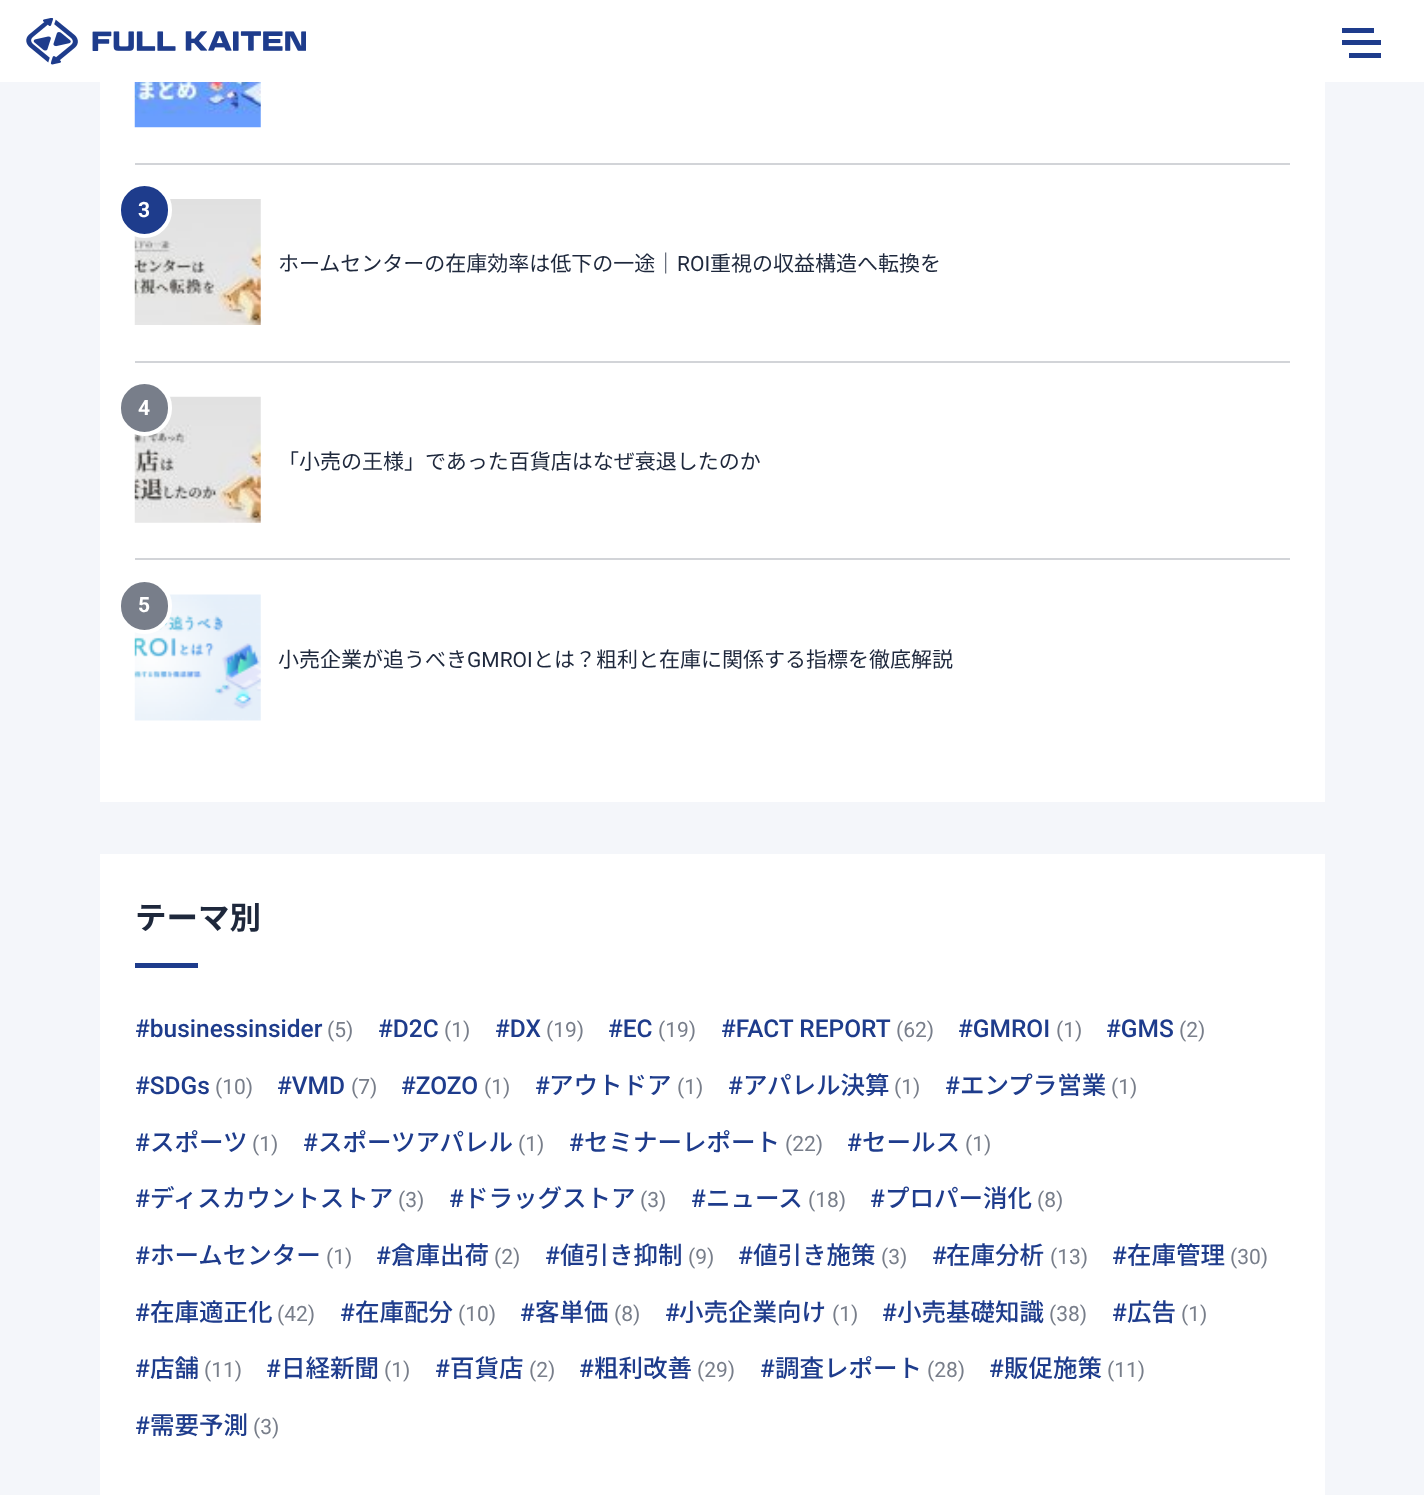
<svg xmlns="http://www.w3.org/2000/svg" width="1424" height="1495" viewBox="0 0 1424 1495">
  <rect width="100%" height="100%" fill="#f4f6fa"/>
  <rect x="0" y="0" width="1424" height="82" fill="#ffffff"/>
  <image x="26" y="18" width="280" height="47" href="img1.png"/>
  <rect x="1342" y="28" width="32" height="5" fill="#1e3c8c"/>
  <rect x="1342" y="40" width="39" height="5" fill="#1e3c8c"/>
  <rect x="1349" y="53" width="32" height="5" fill="#1e3c8c"/>
  <rect x="100" y="82" width="1225" height="720" fill="#ffffff"/>
  <rect x="135" y="163" width="1155" height="2" fill="#d2d4d8"/>
  <image x="134" y="82" width="127" height="46" href="img2.png"/>
  <rect x="135" y="361" width="1155" height="2" fill="#d2d4d8"/>
  <image x="134" y="199" width="127" height="126" href="img3.png"/>
  <rect x="119" y="184" width="51" height="52" rx="25.5" fill="#1e3c8c" stroke="#ffffff" stroke-width="4"/>
  <text x="138" y="217" font-family="Roboto" font-size="21" font-weight="bold" fill="#ffffff">3</text>
  <text x="278" y="271" font-family="Noto Sans JP" font-size="21" fill="#1e283c">ホームセンターの在庫効率は低下の一途｜</text>
  <text x="677" y="271" font-family="Roboto" font-size="21" fill="#1e283c">ROI</text>
  <text x="710" y="271" font-family="Noto Sans JP" font-size="21" fill="#1e283c">重視の収益構造へ転換を</text>
  <rect x="135" y="558" width="1155" height="2" fill="#d2d4d8"/>
  <image x="134" y="396" width="127" height="127" href="img4.png"/>
  <rect x="119" y="382" width="51" height="52" rx="25.5" fill="#787e8a" stroke="#ffffff" stroke-width="4"/>
  <text x="138" y="415" font-family="Roboto" font-size="21" font-weight="bold" fill="#ffffff">4</text>
  <text x="278" y="469" font-family="Noto Sans JP" font-size="21" fill="#1e283c">「小売の王様」であった百貨店はなぜ衰退したのか</text>
  <image x="134" y="594" width="127" height="127" href="img5.png"/>
  <rect x="119" y="580" width="51" height="52" rx="25.5" fill="#787e8a" stroke="#ffffff" stroke-width="4"/>
  <text x="138" y="612" font-family="Roboto" font-size="21" font-weight="bold" fill="#ffffff">5</text>
  <text x="278" y="667" font-family="Noto Sans JP" font-size="21" fill="#1e283c">小売企業が追うべき</text>
  <text x="467" y="667" font-family="Roboto" font-size="21" fill="#1e283c">GMROI</text>
  <text x="533" y="667" font-family="Noto Sans JP" font-size="21" fill="#1e283c">とは？粗利と在庫に関係する指標を徹底解説</text>
  <rect x="100" y="854" width="1225" height="641" fill="#ffffff"/>
  <text x="135" y="929" font-family="Noto Sans JP" font-size="31.5" font-weight="bold" fill="#1e283c">テーマ別</text>
  <rect x="135" y="963" width="63" height="5" fill="#1e3c8c"/>
  <text x="135" y="1037" font-family="Roboto" font-size="24.5" font-weight="500" fill="#1e3c8c">#businessinsider</text>
  <text x="327" y="1037" font-family="Roboto" font-size="21" fill="#787e8a">(5)</text>
  <text x="378" y="1037" font-family="Roboto" font-size="24.5" font-weight="500" fill="#1e3c8c">#D2C</text>
  <text x="444" y="1037" font-family="Roboto" font-size="21" fill="#787e8a">(1)</text>
  <text x="495" y="1037" font-family="Roboto" font-size="24.5" font-weight="500" fill="#1e3c8c">#DX</text>
  <text x="546" y="1037" font-family="Roboto" font-size="21" fill="#787e8a">(19)</text>
  <text x="608" y="1037" font-family="Roboto" font-size="24.5" font-weight="500" fill="#1e3c8c">#EC</text>
  <text x="658" y="1037" font-family="Roboto" font-size="21" fill="#787e8a">(19)</text>
  <text x="721" y="1037" font-family="Roboto" font-size="24.5" font-weight="500" fill="#1e3c8c">#FACT REPORT</text>
  <text x="896" y="1037" font-family="Roboto" font-size="21" fill="#787e8a">(62)</text>
  <text x="958" y="1037" font-family="Roboto" font-size="24.5" font-weight="500" fill="#1e3c8c">#GMROI</text>
  <text x="1056" y="1037" font-family="Roboto" font-size="21" fill="#787e8a">(1)</text>
  <text x="1106" y="1037" font-family="Roboto" font-size="24.5" font-weight="500" fill="#1e3c8c">#GMS</text>
  <text x="1179" y="1037" font-family="Roboto" font-size="21" fill="#787e8a">(2)</text>
  <text x="135" y="1094" font-family="Roboto" font-size="24.5" font-weight="500" fill="#1e3c8c">#SDGs</text>
  <text x="215" y="1094" font-family="Roboto" font-size="21" fill="#787e8a">(10)</text>
  <text x="277" y="1094" font-family="Roboto" font-size="24.5" font-weight="500" fill="#1e3c8c">#VMD</text>
  <text x="351" y="1094" font-family="Roboto" font-size="21" fill="#787e8a">(7)</text>
  <text x="401" y="1094" font-family="Roboto" font-size="24.5" font-weight="500" fill="#1e3c8c">#ZOZO</text>
  <text x="484" y="1094" font-family="Roboto" font-size="21" fill="#787e8a">(1)</text>
  <text x="535" y="1094" font-family="Roboto" font-size="24.5" font-weight="500" fill="#1e3c8c">#</text>
  <text x="549" y="1094" font-family="Noto Sans JP" font-size="24.5" font-weight="500" fill="#1e3c8c">アウトドア</text>
  <text x="677" y="1094" font-family="Roboto" font-size="21" fill="#787e8a">(1)</text>
  <text x="728" y="1094" font-family="Roboto" font-size="24.5" font-weight="500" fill="#1e3c8c">#</text>
  <text x="743" y="1094" font-family="Noto Sans JP" font-size="24.5" font-weight="500" fill="#1e3c8c">アパレル決算</text>
  <text x="894" y="1094" font-family="Roboto" font-size="21" fill="#787e8a">(1)</text>
  <text x="945" y="1094" font-family="Roboto" font-size="24.5" font-weight="500" fill="#1e3c8c">#</text>
  <text x="960" y="1094" font-family="Noto Sans JP" font-size="24.5" font-weight="500" fill="#1e3c8c">エンプラ営業</text>
  <text x="1111" y="1094" font-family="Roboto" font-size="21" fill="#787e8a">(1)</text>
  <text x="135" y="1151" font-family="Roboto" font-size="24.5" font-weight="500" fill="#1e3c8c">#</text>
  <text x="150" y="1151" font-family="Noto Sans JP" font-size="24.5" font-weight="500" fill="#1e3c8c">スポーツ</text>
  <text x="252" y="1151" font-family="Roboto" font-size="21" fill="#787e8a">(1)</text>
  <text x="303" y="1151" font-family="Roboto" font-size="24.5" font-weight="500" fill="#1e3c8c">#</text>
  <text x="318" y="1151" font-family="Noto Sans JP" font-size="24.5" font-weight="500" fill="#1e3c8c">スポーツアパレル</text>
  <text x="518" y="1151" font-family="Roboto" font-size="21" fill="#787e8a">(1)</text>
  <text x="569" y="1151" font-family="Roboto" font-size="24.5" font-weight="500" fill="#1e3c8c">#</text>
  <text x="584" y="1151" font-family="Noto Sans JP" font-size="24.5" font-weight="500" fill="#1e3c8c">セミナーレポート</text>
  <text x="785" y="1151" font-family="Roboto" font-size="21" fill="#787e8a">(22)</text>
  <text x="847" y="1151" font-family="Roboto" font-size="24.5" font-weight="500" fill="#1e3c8c">#</text>
  <text x="862" y="1151" font-family="Noto Sans JP" font-size="24.5" font-weight="500" fill="#1e3c8c">セールス</text>
  <text x="965" y="1151" font-family="Roboto" font-size="21" fill="#787e8a">(1)</text>
  <text x="135" y="1207" font-family="Roboto" font-size="24.5" font-weight="500" fill="#1e3c8c">#</text>
  <text x="150" y="1207" font-family="Noto Sans JP" font-size="24.5" font-weight="500" fill="#1e3c8c">ディスカウントストア</text>
  <text x="398" y="1207" font-family="Roboto" font-size="21" fill="#787e8a">(3)</text>
  <text x="449" y="1207" font-family="Roboto" font-size="24.5" font-weight="500" fill="#1e3c8c">#</text>
  <text x="464" y="1207" font-family="Noto Sans JP" font-size="24.5" font-weight="500" fill="#1e3c8c">ドラッグストア</text>
  <text x="640" y="1207" font-family="Roboto" font-size="21" fill="#787e8a">(3)</text>
  <text x="691" y="1207" font-family="Roboto" font-size="24.5" font-weight="500" fill="#1e3c8c">#</text>
  <text x="706" y="1207" font-family="Noto Sans JP" font-size="24.5" font-weight="500" fill="#1e3c8c">ニュース</text>
  <text x="808" y="1207" font-family="Roboto" font-size="21" fill="#787e8a">(18)</text>
  <text x="870" y="1207" font-family="Roboto" font-size="24.5" font-weight="500" fill="#1e3c8c">#</text>
  <text x="885" y="1207" font-family="Noto Sans JP" font-size="24.5" font-weight="500" fill="#1e3c8c">プロパー消化</text>
  <text x="1037" y="1207" font-family="Roboto" font-size="21" fill="#787e8a">(8)</text>
  <text x="135" y="1264" font-family="Roboto" font-size="24.5" font-weight="500" fill="#1e3c8c">#</text>
  <text x="150" y="1264" font-family="Noto Sans JP" font-size="24.5" font-weight="500" fill="#1e3c8c">ホームセンター</text>
  <text x="326" y="1264" font-family="Roboto" font-size="21" fill="#787e8a">(1)</text>
  <text x="376" y="1264" font-family="Roboto" font-size="24.5" font-weight="500" fill="#1e3c8c">#</text>
  <text x="391" y="1264" font-family="Noto Sans JP" font-size="24.5" font-weight="500" fill="#1e3c8c">倉庫出荷</text>
  <text x="494" y="1264" font-family="Roboto" font-size="21" fill="#787e8a">(2)</text>
  <text x="545" y="1264" font-family="Roboto" font-size="24.5" font-weight="500" fill="#1e3c8c">#</text>
  <text x="560" y="1264" font-family="Noto Sans JP" font-size="24.5" font-weight="500" fill="#1e3c8c">値引き抑制</text>
  <text x="688" y="1264" font-family="Roboto" font-size="21" fill="#787e8a">(9)</text>
  <text x="738" y="1264" font-family="Roboto" font-size="24.5" font-weight="500" fill="#1e3c8c">#</text>
  <text x="753" y="1264" font-family="Noto Sans JP" font-size="24.5" font-weight="500" fill="#1e3c8c">値引き施策</text>
  <text x="881" y="1264" font-family="Roboto" font-size="21" fill="#787e8a">(3)</text>
  <text x="932" y="1264" font-family="Roboto" font-size="24.5" font-weight="500" fill="#1e3c8c">#</text>
  <text x="946" y="1264" font-family="Noto Sans JP" font-size="24.5" font-weight="500" fill="#1e3c8c">在庫分析</text>
  <text x="1050" y="1264" font-family="Roboto" font-size="21" fill="#787e8a">(13)</text>
  <text x="1112" y="1264" font-family="Roboto" font-size="24.5" font-weight="500" fill="#1e3c8c">#</text>
  <text x="1127" y="1264" font-family="Noto Sans JP" font-size="24.5" font-weight="500" fill="#1e3c8c">在庫管理</text>
  <text x="1230" y="1264" font-family="Roboto" font-size="21" fill="#787e8a">(30)</text>
  <text x="135" y="1321" font-family="Roboto" font-size="24.5" font-weight="500" fill="#1e3c8c">#</text>
  <text x="150" y="1321" font-family="Noto Sans JP" font-size="24.5" font-weight="500" fill="#1e3c8c">在庫適正化</text>
  <text x="277" y="1321" font-family="Roboto" font-size="21" fill="#787e8a">(42)</text>
  <text x="340" y="1321" font-family="Roboto" font-size="24.5" font-weight="500" fill="#1e3c8c">#</text>
  <text x="355" y="1321" font-family="Noto Sans JP" font-size="24.5" font-weight="500" fill="#1e3c8c">在庫配分</text>
  <text x="458" y="1321" font-family="Roboto" font-size="21" fill="#787e8a">(10)</text>
  <text x="520" y="1321" font-family="Roboto" font-size="24.5" font-weight="500" fill="#1e3c8c">#</text>
  <text x="535" y="1321" font-family="Noto Sans JP" font-size="24.5" font-weight="500" fill="#1e3c8c">客単価</text>
  <text x="614" y="1321" font-family="Roboto" font-size="21" fill="#787e8a">(8)</text>
  <text x="665" y="1321" font-family="Roboto" font-size="24.5" font-weight="500" fill="#1e3c8c">#</text>
  <text x="679" y="1321" font-family="Noto Sans JP" font-size="24.5" font-weight="500" fill="#1e3c8c">小売企業向け</text>
  <text x="832" y="1321" font-family="Roboto" font-size="21" fill="#787e8a">(1)</text>
  <text x="882" y="1321" font-family="Roboto" font-size="24.5" font-weight="500" fill="#1e3c8c">#</text>
  <text x="897" y="1321" font-family="Noto Sans JP" font-size="24.5" font-weight="500" fill="#1e3c8c">小売基礎知識</text>
  <text x="1049" y="1321" font-family="Roboto" font-size="21" fill="#787e8a">(38)</text>
  <text x="1112" y="1321" font-family="Roboto" font-size="24.5" font-weight="500" fill="#1e3c8c">#</text>
  <text x="1127" y="1321" font-family="Noto Sans JP" font-size="24.5" font-weight="500" fill="#1e3c8c">広告</text>
  <text x="1181" y="1321" font-family="Roboto" font-size="21" fill="#787e8a">(1)</text>
  <text x="135" y="1377" font-family="Roboto" font-size="24.5" font-weight="500" fill="#1e3c8c">#</text>
  <text x="150" y="1377" font-family="Noto Sans JP" font-size="24.5" font-weight="500" fill="#1e3c8c">店舗</text>
  <text x="204" y="1377" font-family="Roboto" font-size="21" fill="#787e8a">(11)</text>
  <text x="266" y="1377" font-family="Roboto" font-size="24.5" font-weight="500" fill="#1e3c8c">#</text>
  <text x="281" y="1377" font-family="Noto Sans JP" font-size="24.5" font-weight="500" fill="#1e3c8c">日経新聞</text>
  <text x="384" y="1377" font-family="Roboto" font-size="21" fill="#787e8a">(1)</text>
  <text x="435" y="1377" font-family="Roboto" font-size="24.5" font-weight="500" fill="#1e3c8c">#</text>
  <text x="450" y="1377" font-family="Noto Sans JP" font-size="24.5" font-weight="500" fill="#1e3c8c">百貨店</text>
  <text x="529" y="1377" font-family="Roboto" font-size="21" fill="#787e8a">(2)</text>
  <text x="579" y="1377" font-family="Roboto" font-size="24.5" font-weight="500" fill="#1e3c8c">#</text>
  <text x="594" y="1377" font-family="Noto Sans JP" font-size="24.5" font-weight="500" fill="#1e3c8c">粗利改善</text>
  <text x="697" y="1377" font-family="Roboto" font-size="21" fill="#787e8a">(29)</text>
  <text x="760" y="1377" font-family="Roboto" font-size="24.5" font-weight="500" fill="#1e3c8c">#</text>
  <text x="775" y="1377" font-family="Noto Sans JP" font-size="24.5" font-weight="500" fill="#1e3c8c">調査レポート</text>
  <text x="927" y="1377" font-family="Roboto" font-size="21" fill="#787e8a">(28)</text>
  <text x="989" y="1377" font-family="Roboto" font-size="24.5" font-weight="500" fill="#1e3c8c">#</text>
  <text x="1004" y="1377" font-family="Noto Sans JP" font-size="24.5" font-weight="500" fill="#1e3c8c">販促施策</text>
  <text x="1107" y="1377" font-family="Roboto" font-size="21" fill="#787e8a">(11)</text>
  <text x="135" y="1434" font-family="Roboto" font-size="24.5" font-weight="500" fill="#1e3c8c">#</text>
  <text x="150" y="1434" font-family="Noto Sans JP" font-size="24.5" font-weight="500" fill="#1e3c8c">需要予測</text>
  <text x="253" y="1434" font-family="Roboto" font-size="21" fill="#787e8a">(3)</text>
</svg>
